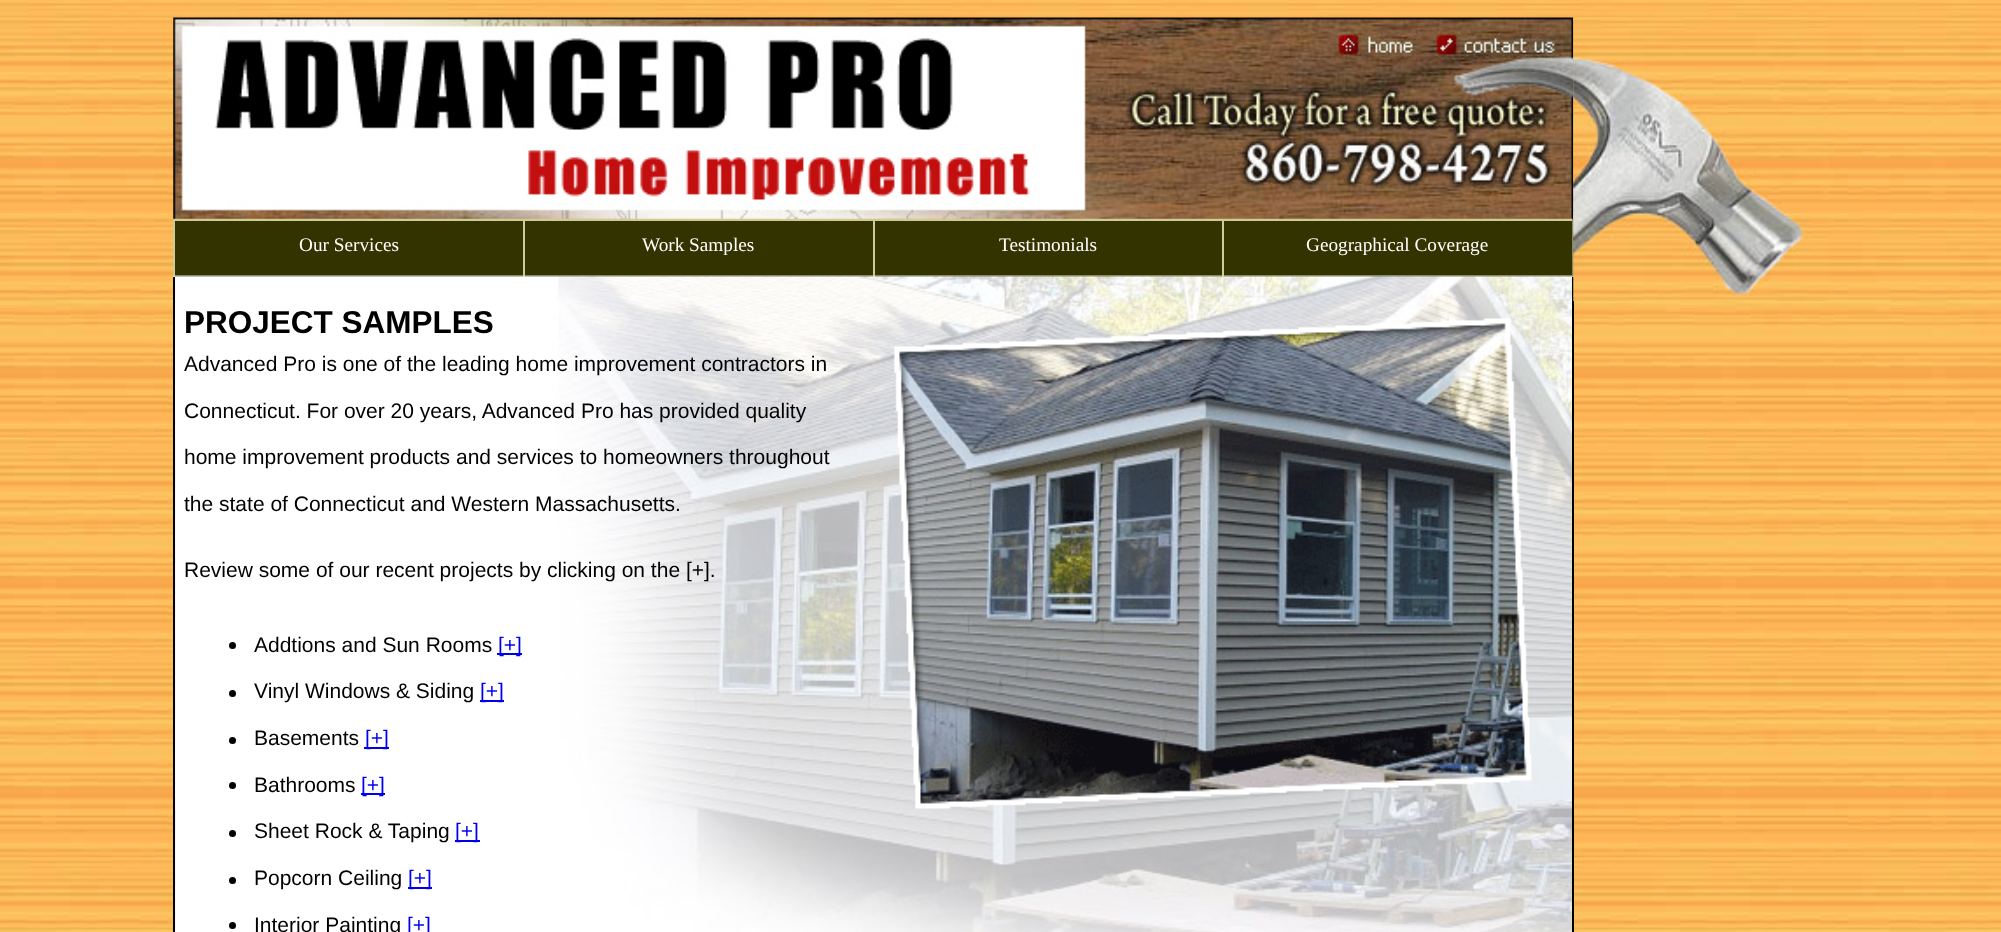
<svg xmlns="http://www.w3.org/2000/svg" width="2001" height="932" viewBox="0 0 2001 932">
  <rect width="100%" height="100%" fill="#ffffff"/>
  <image x="0" y="0" width="2001" height="18" href="img1.png"/>
  <image x="0" y="18" width="2001" height="914" href="img2.png"/>
  <image x="173" y="17" width="1401" height="202" href="img4.png"/>
  <rect x="173" y="219" width="1400" height="2" fill="#cccc99"/>
  <rect x="1572" y="219" width="2" height="58" fill="#888866"/>
  <rect x="173" y="275" width="1049" height="2" fill="#888866"/>
  <rect x="173" y="219" width="2" height="58" fill="#cccc99"/>
  <rect x="175" y="221" width="1397" height="54" fill="#333300"/>
  <rect x="523" y="219" width="2" height="58" fill="#cccc99"/>
  <rect x="873" y="219" width="2" height="58" fill="#cccc99"/>
  <rect x="1222" y="275" width="351" height="2" fill="#888866"/>
  <rect x="1222" y="219" width="2" height="58" fill="#cccc99"/>
  <image x="173" y="276" width="1401" height="656" href="img5.png"/>
  <rect x="1572" y="277" width="2" height="655" fill="#000000"/>
  <image x="1573" y="17" width="256" height="284" href="img3.png"/>
  <text x="299" y="251" font-family="Liberation Serif" font-size="19.25" fill="#ffffff">Our Services</text>
  <text x="642" y="251" font-family="Liberation Serif" font-size="19.25" fill="#ffffff">Work Samples</text>
  <text x="999" y="251" font-family="Liberation Serif" font-size="19.25" fill="#ffffff">Testimonials</text>
  <text x="1306" y="251" font-family="Liberation Serif" font-size="19.25" fill="#ffffff">Geographical Coverage</text>
  <rect x="173" y="277" width="2" height="655" fill="#000000"/>
  <text x="184" y="333" font-family="Liberation Sans" font-size="31.5" font-weight="bold" fill="#000000">PROJECT SAMPLES</text>
  <image x="893" y="318" width="639" height="491" href="img6.png"/>
  <text x="184" y="371" font-family="Liberation Sans" font-size="21" fill="#000000">Advanced Pro is one of the leading home improvement contractors in</text>
  <text x="184" y="418" font-family="Liberation Sans" font-size="21" fill="#000000">Connecticut. For over 20 years, Advanced Pro has provided quality</text>
  <text x="184" y="464" font-family="Liberation Sans" font-size="21" fill="#000000">home improvement products and services to homeowners throughout</text>
  <text x="184" y="511" font-family="Liberation Sans" font-size="21" fill="#000000">the state of Connecticut and Western Massachusetts.</text>
  <text x="184" y="577" font-family="Liberation Sans" font-size="21" fill="#000000">Review some of our recent projects by clicking on the [+].</text>
  <circle cx="232.5" cy="645.5" r="3.5" fill="#000000"/>
  <text x="254" y="652" font-family="Liberation Sans" font-size="21" fill="#000000">Addtions and Sun Rooms</text>
  <rect x="497" y="653" width="25" height="2" fill="#0000ee"/>
  <text x="498" y="652" font-family="Liberation Sans" font-size="21" fill="#0000ee">[+]</text>
  <circle cx="232.5" cy="693.5" r="3.5" fill="#000000"/>
  <text x="254" y="698" font-family="Liberation Sans" font-size="21" fill="#000000">Vinyl Windows &amp; Siding</text>
  <rect x="480" y="700" width="24" height="2" fill="#0000ee"/>
  <text x="480" y="698" font-family="Liberation Sans" font-size="21" fill="#0000ee">[+]</text>
  <circle cx="232.5" cy="740.5" r="3.5" fill="#000000"/>
  <text x="254" y="745" font-family="Liberation Sans" font-size="21" fill="#000000">Basements</text>
  <rect x="364" y="747" width="25" height="2" fill="#0000ee"/>
  <text x="365" y="745" font-family="Liberation Sans" font-size="21" fill="#0000ee">[+]</text>
  <circle cx="232.5" cy="785.5" r="3.5" fill="#000000"/>
  <text x="254" y="792" font-family="Liberation Sans" font-size="21" fill="#000000">Bathrooms</text>
  <rect x="361" y="793" width="24" height="2" fill="#0000ee"/>
  <text x="361" y="792" font-family="Liberation Sans" font-size="21" fill="#0000ee">[+]</text>
  <circle cx="232.5" cy="833.5" r="3.5" fill="#000000"/>
  <text x="254" y="838" font-family="Liberation Sans" font-size="21" fill="#000000">Sheet Rock &amp; Taping</text>
  <rect x="455" y="840" width="25" height="2" fill="#0000ee"/>
  <text x="455" y="838" font-family="Liberation Sans" font-size="21" fill="#0000ee">[+]</text>
  <circle cx="232.5" cy="880.5" r="3.5" fill="#000000"/>
  <text x="254" y="885" font-family="Liberation Sans" font-size="21" fill="#000000">Popcorn Ceiling</text>
  <rect x="408" y="887" width="24" height="2" fill="#0000ee"/>
  <text x="408" y="885" font-family="Liberation Sans" font-size="21" fill="#0000ee">[+]</text>
  <circle cx="232.5" cy="925.5" r="3.5" fill="#000000"/>
  <text x="254" y="932" font-family="Liberation Sans" font-size="21" fill="#000000">Interior Painting</text>
  <text x="407" y="932" font-family="Liberation Sans" font-size="21" fill="#0000ee">[+]</text>
</svg>
